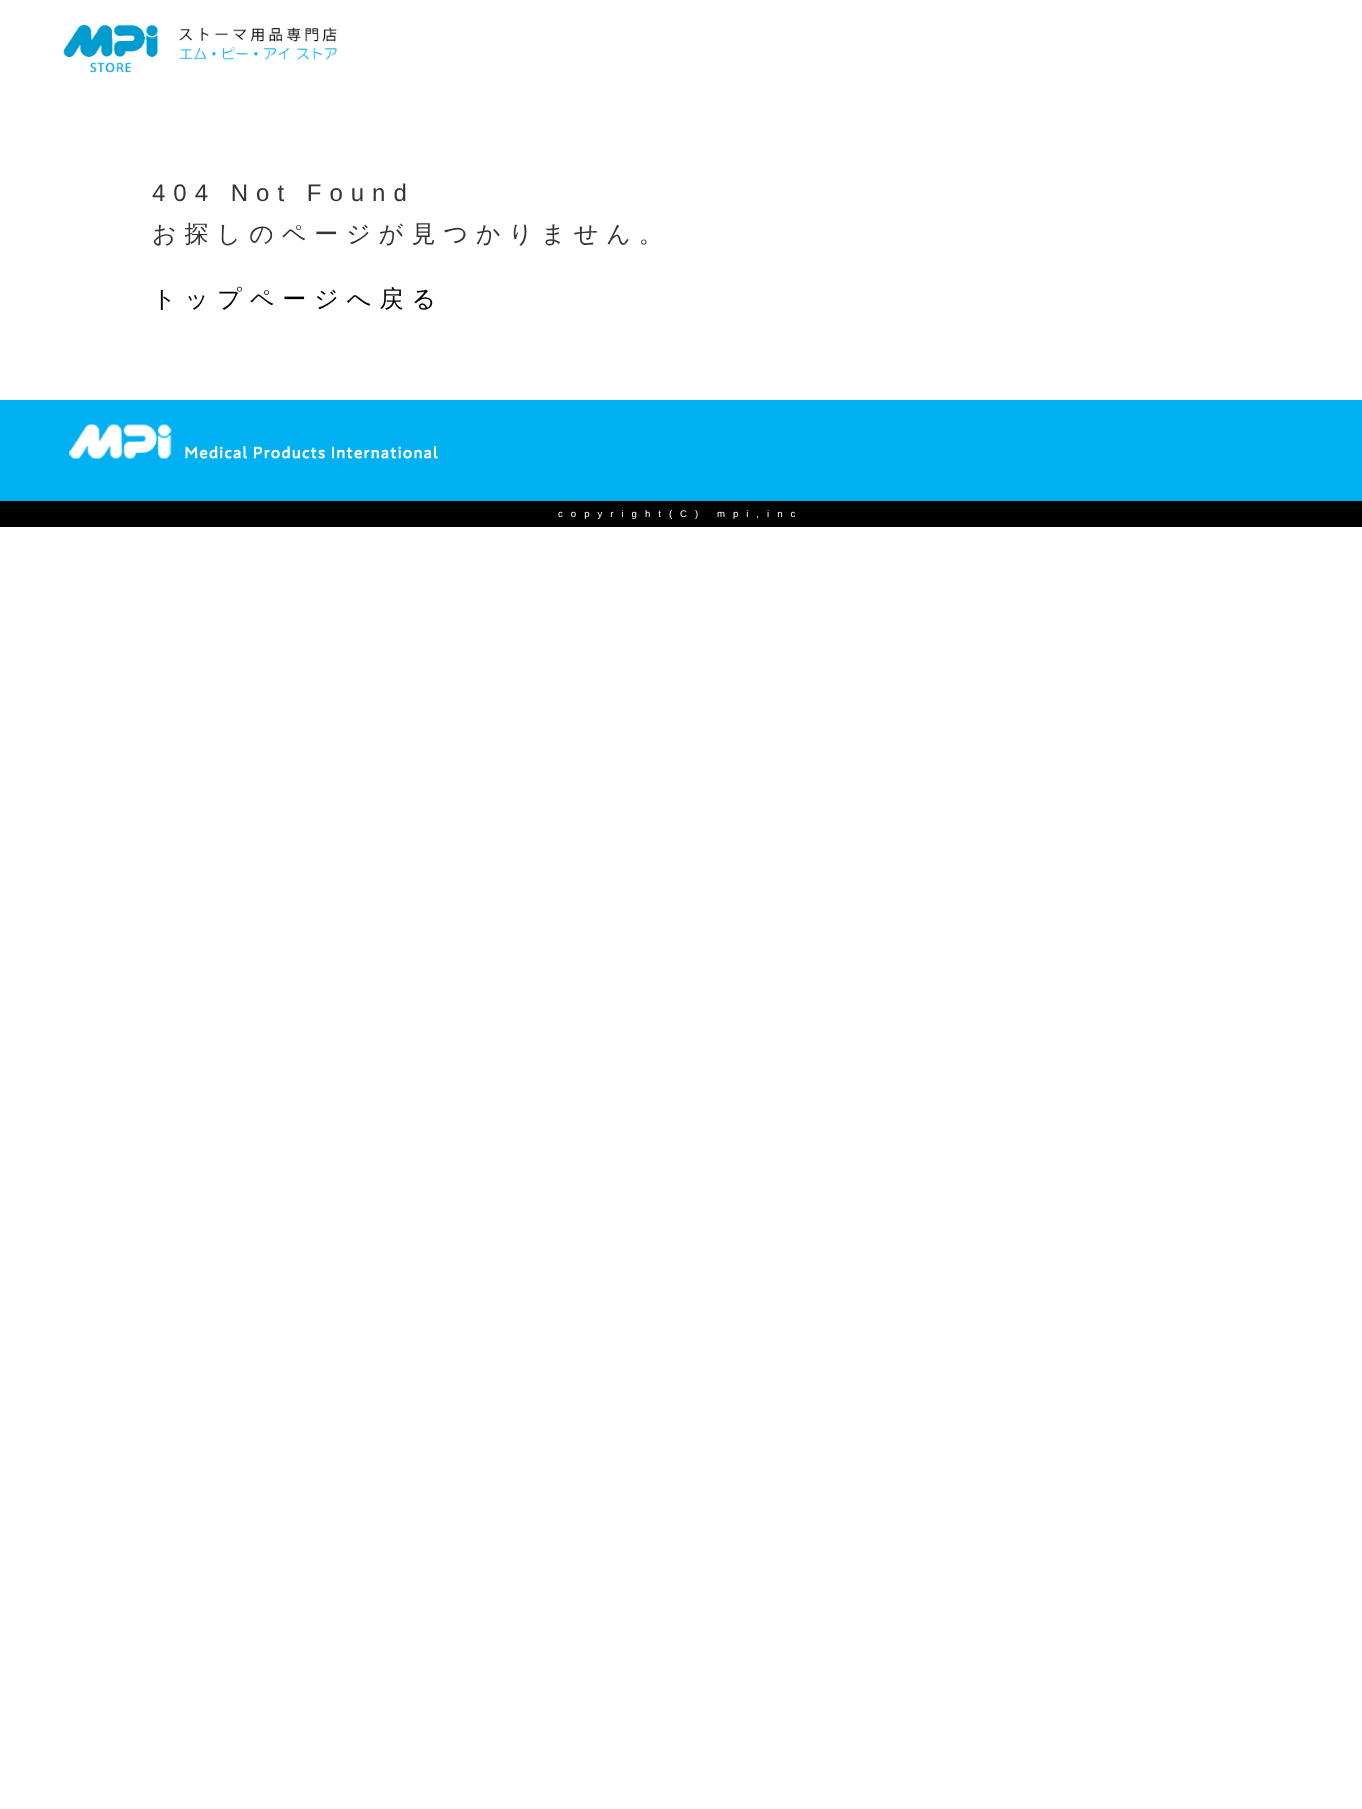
<svg xmlns="http://www.w3.org/2000/svg" width="1362" height="1809" viewBox="0 0 1362 1809">
  <rect width="100%" height="100%" fill="#ffffff"/>
  <image x="63" y="24" width="274" height="49" href="img1.png"/>
  <text x="152" y="201" font-family="Liberation Sans" font-size="24" letter-spacing="8" fill="#333333">404 Not Found</text>
  <text x="152" y="242" font-family="WenQuanYi Zen Hei" font-size="24" font-weight="500" letter-spacing="8" fill="#333333">お探しのページが見つかりません。</text>
  <text x="152" y="307" font-family="WenQuanYi Zen Hei" font-size="24" font-weight="500" letter-spacing="8" fill="#000000">トップページへ戻る</text>
  <rect x="0" y="400" width="1362" height="101" fill="#00b0f0"/>
  <image x="69" y="424" width="369" height="35" href="img2.png"/>
  <rect x="0" y="501" width="1362" height="26" fill="#000000"/>
  <text x="558" y="517" font-family="Liberation Sans" font-size="9.6" letter-spacing="8" fill="#ffffff">copyright(C) mpi,inc</text>
</svg>
